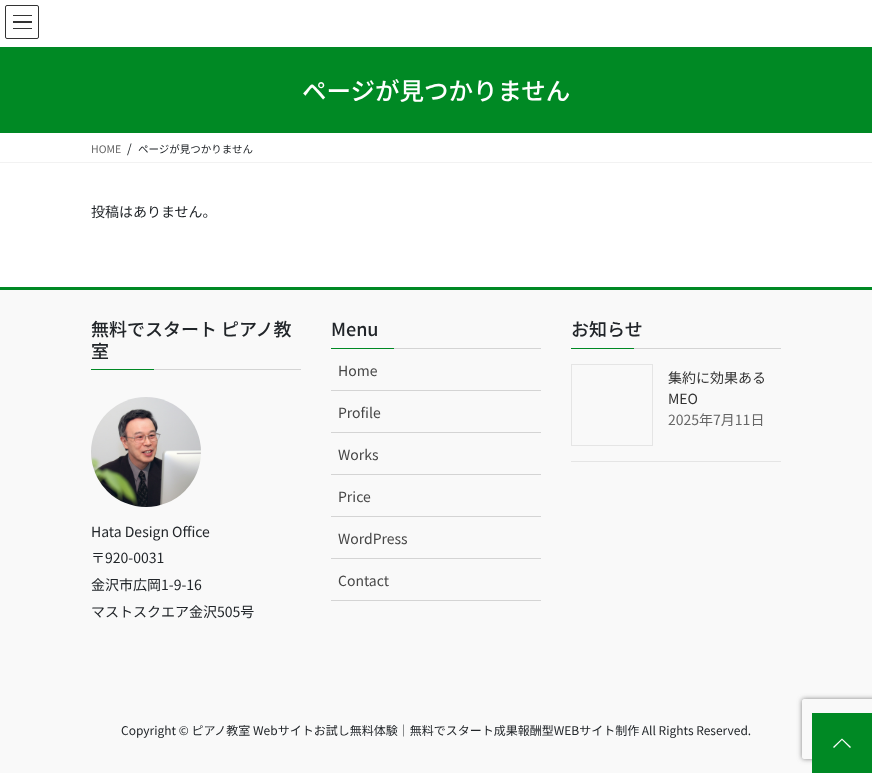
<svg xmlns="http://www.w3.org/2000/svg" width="872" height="773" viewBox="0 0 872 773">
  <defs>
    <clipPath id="clip1"><path d="M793 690H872V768H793ZM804 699H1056C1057 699 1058 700 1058 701V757C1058 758 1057 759 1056 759H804C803 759 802 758 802 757V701C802 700 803 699 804 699Z" clip-rule="evenodd"/></clipPath>
    <filter id="blur1" x="-50%" y="-200%" width="200%" height="500%"><feGaussianBlur stdDeviation="2.5"/></filter>
  </defs>
  <rect width="100%" height="100%" fill="#ffffff"/>
  <rect x="13" y="15" width="19" height="1" fill="#333333"/>
  <rect x="13" y="21" width="19" height="2" fill="#333333"/>
  <rect x="13" y="28" width="19" height="1" fill="#333333"/>
  <rect x="5.5" y="5.5" width="33" height="33" rx="1.5" fill="none" stroke="#333333"/>
  <rect x="0" y="47" width="872" height="86" fill="#008924"/>
  <text x="302" y="100" font-family="Noto Sans JP" font-size="24.5" font-weight="500" fill="#ffffff">ページが見つかりません</text>
  <rect x="0" y="162" width="872" height="1" fill="#f2f2f2"/>
  <text x="91" y="153" font-family="Noto Sans JP" font-size="10.5" fill="#666666">HOME</text>
  <text x="127" y="153" font-family="Noto Sans JP" font-size="12" fill="#212529">/</text>
  <text x="138" y="153" font-family="Noto Sans JP" font-size="10.5" fill="#212529">ページが見つかりません</text>
  <text x="91" y="217" font-family="Noto Sans JP" font-size="14" fill="#212529">投稿はありません。</text>
  <rect x="0" y="290" width="872" height="483" fill="#f9f9f9"/>
  <rect x="0" y="287" width="872" height="3" fill="#008924"/>
  <rect x="154" y="369" width="147" height="1" fill="#d4d4d4"/>
  <text x="91" y="336" font-family="Noto Sans JP" font-size="18" font-weight="500" fill="#212529">無料でスタート ピアノ教</text>
  <text x="91" y="358" font-family="Noto Sans JP" font-size="18" font-weight="500" fill="#212529">室</text>
  <rect x="91" y="369" width="63" height="1" fill="#008924"/>
  <image x="91" y="397" width="110" height="110" href="img1.png"/>
  <text x="91" y="537" font-family="Noto Sans JP" font-size="14" fill="#212529">Hata Design Office</text>
  <text x="91" y="563" font-family="Noto Sans JP" font-size="14" fill="#212529">〒920-0031</text>
  <text x="91" y="590" font-family="Noto Sans JP" font-size="14" fill="#212529">金沢市広岡1-9-16</text>
  <text x="91" y="617" font-family="Noto Sans JP" font-size="14" fill="#212529">マストスクエア金沢505号</text>
  <rect x="394" y="348" width="147" height="1" fill="#d4d4d4"/>
  <text x="331" y="336" font-family="Noto Sans JP" font-size="18" font-weight="500" fill="#212529">Menu</text>
  <rect x="331" y="348" width="63" height="1" fill="#008924"/>
  <rect x="331" y="390" width="210" height="1" fill="#d4d4d4"/>
  <text x="338" y="376" font-family="Noto Sans JP" font-size="14" fill="#464646">Home</text>
  <rect x="331" y="432" width="210" height="1" fill="#d4d4d4"/>
  <text x="338" y="418" font-family="Noto Sans JP" font-size="14" fill="#464646">Profile</text>
  <rect x="331" y="474" width="210" height="1" fill="#d4d4d4"/>
  <text x="338" y="460" font-family="Noto Sans JP" font-size="14" fill="#464646">Works</text>
  <rect x="331" y="516" width="210" height="1" fill="#d4d4d4"/>
  <text x="338" y="502" font-family="Noto Sans JP" font-size="14" fill="#464646">Price</text>
  <rect x="331" y="558" width="210" height="1" fill="#d4d4d4"/>
  <text x="338" y="544" font-family="Noto Sans JP" font-size="14" fill="#464646">WordPress</text>
  <rect x="331" y="600" width="210" height="1" fill="#d4d4d4"/>
  <text x="338" y="586" font-family="Noto Sans JP" font-size="14" fill="#464646">Contact</text>
  <rect x="634" y="348" width="147" height="1" fill="#d4d4d4"/>
  <text x="571" y="336" font-family="Noto Sans JP" font-size="18" font-weight="500" fill="#212529">お知らせ</text>
  <rect x="571" y="348" width="63" height="1" fill="#008924"/>
  <rect x="571" y="461" width="210" height="1" fill="#e5e5e5"/>
  <rect x="571.5" y="364.5" width="81" height="81" fill="none" stroke="#e5e5e5"/>
  <text x="668" y="383" font-family="Noto Sans JP" font-size="14" fill="#333333">集約に効果ある</text>
  <text x="668" y="404" font-family="Noto Sans JP" font-size="14" fill="#333333">MEO</text>
  <text x="668" y="425" font-family="Noto Sans JP" font-size="14" fill="#666666">2025年7月11日</text>
  <text x="121" y="735" font-family="Noto Sans JP" font-size="12" fill="#212529">Copyright © ピアノ教室 Webサイトお試し無料体験｜無料でスタート成果報酬型WEBサイト制作 All Rights Reserved.</text>
  <g clip-path="url(#clip1)">
    <rect x="802" y="699" width="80" height="60" rx="2" fill="#808080" filter="url(#blur1)"/>
  </g>
  <rect x="812" y="713" width="60" height="60" fill="#008924"/>
  <path d="M851 747L850 748L842 740L834 748L833 747L842 738.5Z" fill="#ffffff"/>
</svg>
